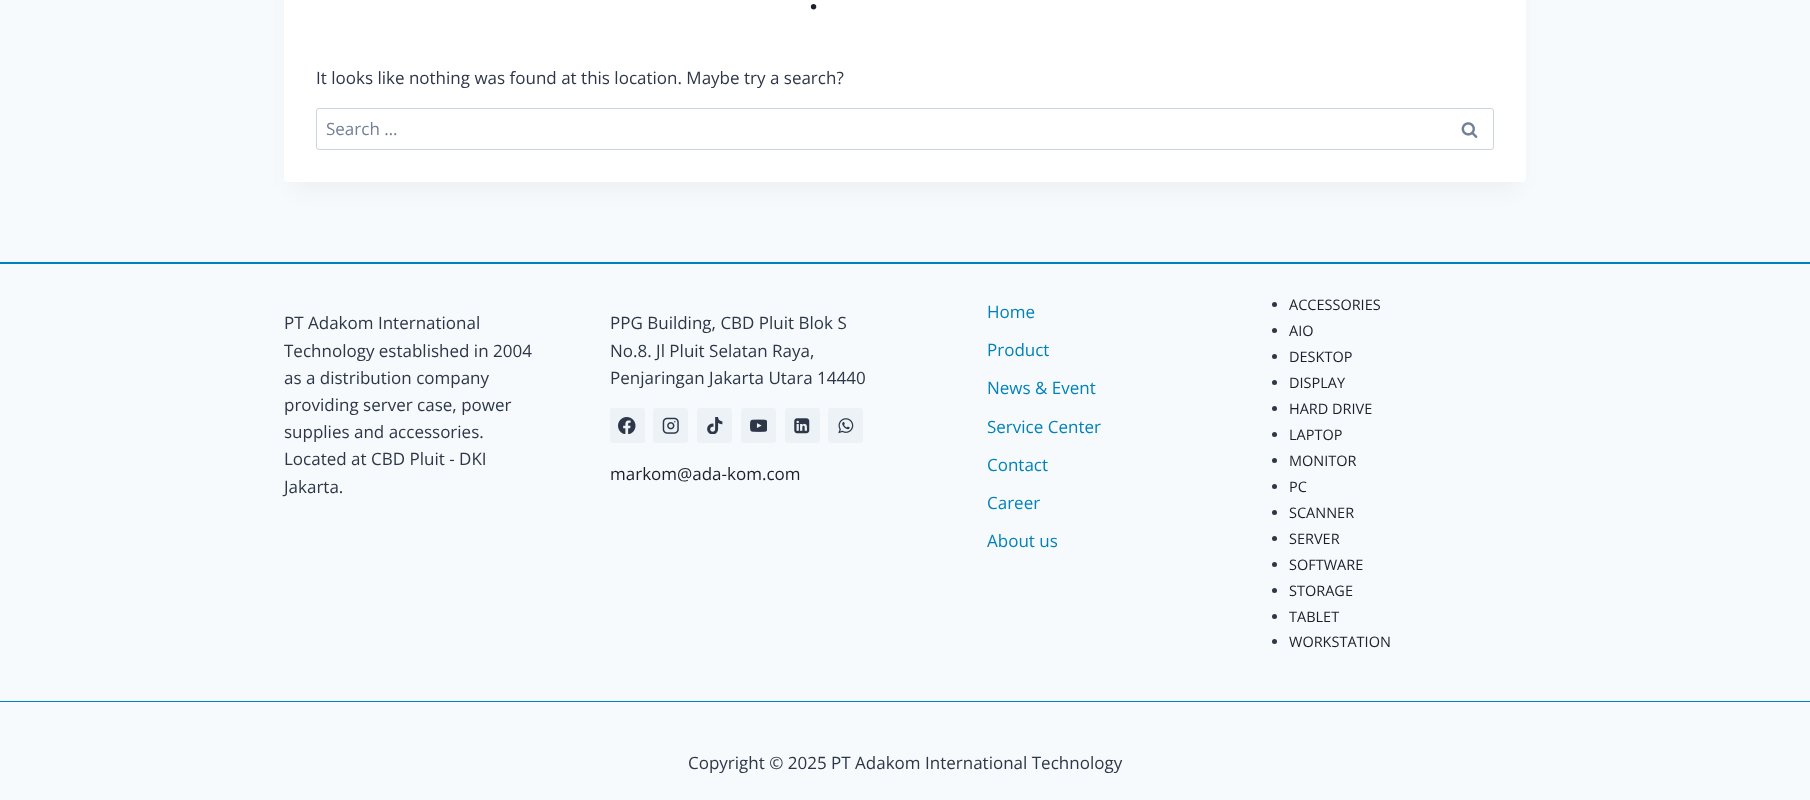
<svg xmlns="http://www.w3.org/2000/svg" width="1810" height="800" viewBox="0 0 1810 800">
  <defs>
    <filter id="blur1" x="-50%" y="-200%" width="200%" height="500%"><feGaussianBlur stdDeviation="12.5"/></filter>
  </defs>
  <rect width="100%" height="100%" fill="#f7fafc"/>
  <rect x="294" y="-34" width="1222" height="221" fill="#000000" fill-opacity="0.05" filter="url(#blur1)"/>
  <rect x="284" y="-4" width="1242" height="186" rx="4" fill="#ffffff"/>
  <text x="809" y="9" font-family="Open Sans" font-size="32" font-weight="bold" fill="#1a202c">.</text>
  <text x="316" y="84" font-family="Open Sans" font-size="17" fill="#2d3748">It looks like nothing was found at this location. Maybe try a search?</text>
  <rect x="316.5" y="108.5" width="1177" height="41" rx="2.5" fill="none" stroke="#cbd5e0"/>
  <text x="326" y="135" font-family="Open Sans" font-size="17" fill="#718096">Search …</text>
  <image x="1461" y="122" width="17" height="16" href="img1.png"/>
  <rect x="0" y="262" width="1810" height="2" fill="#0082b9"/>
  <text x="284" y="329" font-family="Open Sans" font-size="17" fill="#2d3748">PT Adakom International</text>
  <text x="284" y="357" font-family="Open Sans" font-size="17" fill="#2d3748">Technology established in 2004</text>
  <text x="284" y="384" font-family="Open Sans" font-size="17" fill="#2d3748">as a distribution company</text>
  <text x="284" y="411" font-family="Open Sans" font-size="17" fill="#2d3748">providing server case, power</text>
  <text x="284" y="438" font-family="Open Sans" font-size="17" fill="#2d3748">supplies and accessories.</text>
  <text x="284" y="465" font-family="Open Sans" font-size="17" fill="#2d3748">Located at CBD Pluit - DKI</text>
  <text x="284" y="493" font-family="Open Sans" font-size="17" fill="#2d3748">Jakarta.</text>
  <text x="610" y="329" font-family="Open Sans" font-size="17" fill="#2d3748">PPG Building, CBD Pluit Blok S</text>
  <text x="610" y="357" font-family="Open Sans" font-size="17" fill="#2d3748">No.8. Jl Pluit Selatan Raya,</text>
  <text x="610" y="384" font-family="Open Sans" font-size="17" fill="#2d3748">Penjaringan Jakarta Utara 14440</text>
  <rect x="610" y="408" width="35" height="35" rx="3" fill="#edf2f7"/>
  <image x="618" y="417" width="18" height="17" href="img2.png"/>
  <rect x="653" y="408" width="35" height="35" rx="3" fill="#edf2f7"/>
  <image x="662" y="417" width="17" height="17" href="img3.png"/>
  <rect x="697" y="408" width="35" height="35" rx="3" fill="#edf2f7"/>
  <image x="707" y="417" width="16" height="17" href="img4.png"/>
  <rect x="741" y="408" width="35" height="35" rx="3" fill="#edf2f7"/>
  <image x="750" y="419" width="17" height="13" href="img5.png"/>
  <rect x="785" y="408" width="35" height="35" rx="3" fill="#edf2f7"/>
  <image x="794" y="418" width="16" height="16" href="img6.png"/>
  <rect x="828" y="408" width="35" height="35" rx="3" fill="#edf2f7"/>
  <image x="838" y="418" width="16" height="16" href="img7.png"/>
  <text x="610" y="480" font-family="Open Sans" font-size="17" fill="#1a202c">markom@ada-kom.com</text>
  <text x="987" y="318" font-family="Open Sans" font-size="17" fill="#0082b9">Home</text>
  <text x="987" y="356" font-family="Open Sans" font-size="17" fill="#0082b9">Product</text>
  <text x="987" y="394" font-family="Open Sans" font-size="17" fill="#0082b9">News &amp; Event</text>
  <text x="987" y="433" font-family="Open Sans" font-size="17" fill="#0082b9">Service Center</text>
  <text x="987" y="471" font-family="Open Sans" font-size="17" fill="#0082b9">Contact</text>
  <text x="987" y="509" font-family="Open Sans" font-size="17" fill="#0082b9">Career</text>
  <text x="987" y="547" font-family="Open Sans" font-size="17" fill="#0082b9">About us</text>
  <circle cx="1274.5" cy="304.5" r="2.5" fill="#2d3748"/>
  <text x="1289" y="310" font-family="Open Sans" font-size="14.5" fill="#1a202c">ACCESSORIES</text>
  <circle cx="1274.5" cy="330.5" r="2.5" fill="#2d3748"/>
  <text x="1289" y="336" font-family="Open Sans" font-size="14.5" fill="#1a202c">AIO</text>
  <circle cx="1274.5" cy="356.5" r="2.5" fill="#2d3748"/>
  <text x="1289" y="362" font-family="Open Sans" font-size="14.5" fill="#1a202c">DESKTOP</text>
  <circle cx="1274.5" cy="382.5" r="2.5" fill="#2d3748"/>
  <text x="1289" y="388" font-family="Open Sans" font-size="14.5" fill="#1a202c">DISPLAY</text>
  <circle cx="1274.5" cy="408.5" r="2.5" fill="#2d3748"/>
  <text x="1289" y="414" font-family="Open Sans" font-size="14.5" fill="#1a202c">HARD DRIVE</text>
  <circle cx="1274.5" cy="434.5" r="2.5" fill="#2d3748"/>
  <text x="1289" y="440" font-family="Open Sans" font-size="14.5" fill="#1a202c">LAPTOP</text>
  <circle cx="1274.5" cy="460.5" r="2.5" fill="#2d3748"/>
  <text x="1289" y="466" font-family="Open Sans" font-size="14.5" fill="#1a202c">MONITOR</text>
  <circle cx="1274.5" cy="486.5" r="2.5" fill="#2d3748"/>
  <text x="1289" y="492" font-family="Open Sans" font-size="14.5" fill="#1a202c">PC</text>
  <circle cx="1274.5" cy="512.5" r="2.5" fill="#2d3748"/>
  <text x="1289" y="518" font-family="Open Sans" font-size="14.5" fill="#1a202c">SCANNER</text>
  <circle cx="1274.5" cy="538.5" r="2.5" fill="#2d3748"/>
  <text x="1289" y="544" font-family="Open Sans" font-size="14.5" fill="#1a202c">SERVER</text>
  <circle cx="1274.5" cy="564.5" r="2.5" fill="#2d3748"/>
  <text x="1289" y="570" font-family="Open Sans" font-size="14.5" fill="#1a202c">SOFTWARE</text>
  <circle cx="1274.5" cy="590.5" r="2.5" fill="#2d3748"/>
  <text x="1289" y="596" font-family="Open Sans" font-size="14.5" fill="#1a202c">STORAGE</text>
  <circle cx="1274.5" cy="616.5" r="2.5" fill="#2d3748"/>
  <text x="1289" y="622" font-family="Open Sans" font-size="14.5" fill="#1a202c">TABLET</text>
  <circle cx="1274.5" cy="641.5" r="2.5" fill="#2d3748"/>
  <text x="1289" y="647" font-family="Open Sans" font-size="14.5" fill="#1a202c">WORKSTATION</text>
  <rect x="0" y="701" width="1810" height="1" fill="#0082b9"/>
  <text x="688" y="769" font-family="Open Sans" font-size="17" fill="#2d3748">Copyright © 2025 PT Adakom International Technology</text>
</svg>
